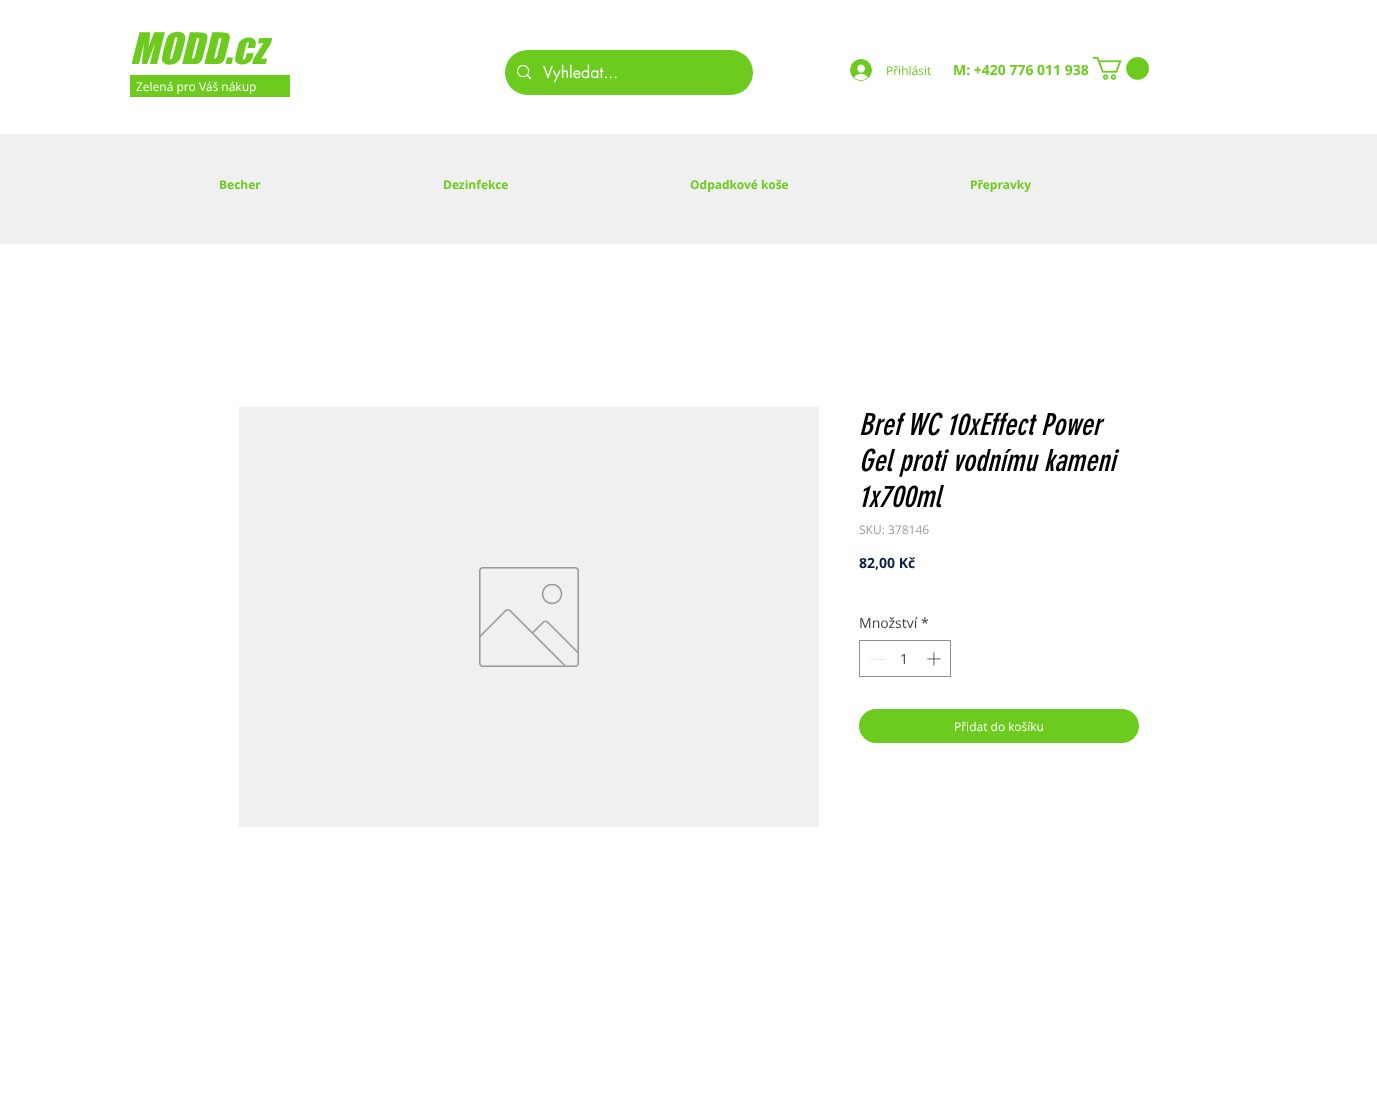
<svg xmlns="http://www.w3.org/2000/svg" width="1377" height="1112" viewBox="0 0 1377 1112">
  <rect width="100%" height="100%" fill="#ffffff"/>
  <text x="130" y="64" font-family="'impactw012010'" font-size="40" font-style="italic" fill="#6ccb1e">MODD.cz</text>
  <rect x="130" y="75" width="160" height="22" fill="#6ccb1e"/>
  <text x="136" y="91" font-family="Open Sans" font-size="12" fill="#ffffff">Zelená pro Váš nákup</text>
  <rect x="0" y="134" width="1377" height="110" fill="#f0f0f0"/>
  <text x="219" y="189" font-family="Open Sans" font-size="12" font-weight="bold" fill="#6ccb1e">Becher</text>
  <text x="443" y="189" font-family="Open Sans" font-size="12" font-weight="bold" fill="#6ccb1e">Dezinfekce</text>
  <text x="690" y="189" font-family="Open Sans" font-size="12" font-weight="bold" fill="#6ccb1e">Odpadkové koše</text>
  <text x="970" y="189" font-family="Open Sans" font-size="12" font-weight="bold" fill="#6ccb1e">Přepravky</text>
  <rect x="505" y="50" width="248" height="45" rx="22.5" fill="#6ccb1e"/>
  <image x="517" y="65" width="14" height="15" href="img1.png"/>
  <text x="543" y="78" font-family="futura" font-size="16" fill="#ffffff">Vyhledat...</text>
  <image x="850" y="59" width="22" height="22" href="img2.png"/>
  <text x="886" y="75" font-family="Open Sans" font-size="12" fill="#6ccb1e">Přihlásit</text>
  <text x="953" y="75" font-family="Open Sans" font-size="14" font-weight="bold" fill="#6ccb1e">M: +420 776 011 938</text>
  <image x="1093" y="57" width="56" height="23" href="img3.png"/>
  <rect x="239" y="407" width="580" height="420" fill="#f0f0f0"/>
  <image x="479" y="567" width="100" height="100" href="img4.png"/>
  <text x="859" y="435" font-family="'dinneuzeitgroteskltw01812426'" font-size="30" font-style="italic" fill="#000000">Bref WC 10xEffect Power</text>
  <text x="859" y="471" font-family="'dinneuzeitgroteskltw01812426'" font-size="30" font-style="italic" fill="#000000">Gel proti vodnímu kameni</text>
  <text x="859" y="507" font-family="'dinneuzeitgroteskltw01812426'" font-size="30" font-style="italic" fill="#000000">1x700ml</text>
  <text x="859" y="534" font-family="Open Sans" font-size="12" fill="#999997">SKU: 378146</text>
  <text x="859" y="568" font-family="Open Sans" font-size="14" font-weight="bold" fill="#0a2344">82,00 Kč</text>
  <text x="859" y="628" font-family="Open Sans" font-size="14" fill="#414141">Množství</text>
  <text x="921" y="628" font-family="Open Sans" font-size="14" fill="#414141">*</text>
  <rect x="859.5" y="640.5" width="91" height="36" fill="none" stroke="#8d8d8d"/>
  <rect x="871" y="659" width="13" height="1" fill="#e3e3e3"/>
  <text x="900" y="664" font-family="Open Sans" font-size="14" fill="#414141">1</text>
  <image x="927" y="652" width="14" height="14" href="img5.png"/>
  <rect x="859" y="709" width="280" height="34" rx="17" fill="#6ccb1e"/>
  <text x="954" y="731" font-family="Open Sans" font-size="12" fill="#ffffff">Přidat do košíku</text>
</svg>
